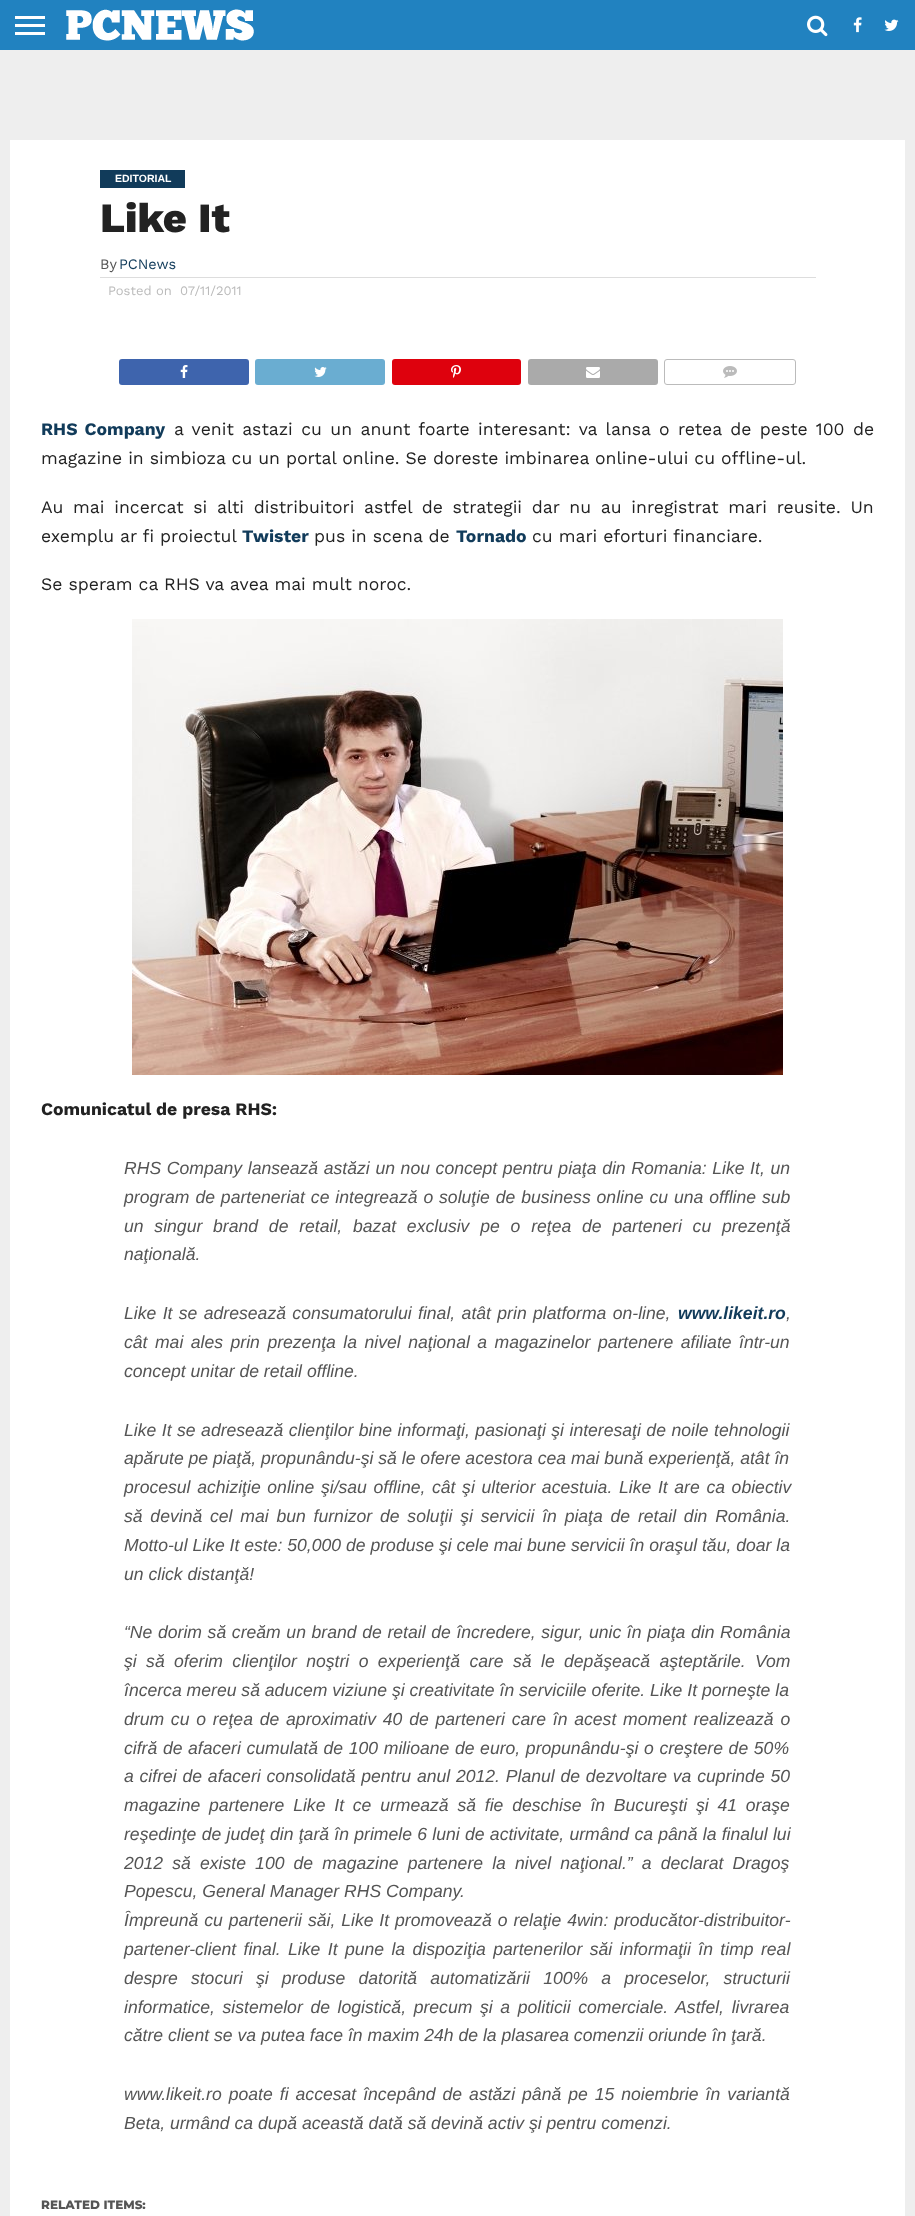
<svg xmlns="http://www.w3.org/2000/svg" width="915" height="2216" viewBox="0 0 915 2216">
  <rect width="100%" height="100%" fill="#eeeeee"/>
  <rect x="0" y="0" width="915" height="50" fill="#2182c0"/>
  <rect x="15" y="16" width="30" height="3" fill="#ffffff"/>
  <rect x="15" y="24" width="30" height="3" fill="#ffffff"/>
  <rect x="15" y="32" width="30" height="3" fill="#ffffff"/>
  <image x="66" y="9" width="188" height="32" href="img1.png"/>
  <image x="807" y="15" width="21" height="22" href="img2.png"/>
  <image x="853" y="17" width="9" height="16" href="img3.png"/>
  <image x="884" y="19" width="15" height="12" href="img4.png"/>
  <rect x="10" y="140" width="895" height="2076" fill="#ffffff"/>
  <rect x="100" y="170" width="85" height="18" fill="#113b5a"/>
  <text x="115" y="182" font-family="Liberation Sans" font-size="10.5" font-weight="bold" fill="#ffffff">EDITORIAL</text>
  <text x="100" y="232" font-family="Work Sans" font-size="41.5" font-weight="800" fill="#222222">Like It</text>
  <rect x="100" y="277" width="716" height="1" fill="#dddddd"/>
  <text x="100" y="269" font-family="Work Sans" font-size="14.5" fill="#555555">By</text>
  <text x="119" y="269" font-family="Work Sans" font-size="14.5" fill="#113b5a">PCNews</text>
  <text x="108" y="295" font-family="Work Sans" font-size="13" fill="#bbbbbb">Posted on</text>
  <text x="180" y="295" font-family="Work Sans" font-size="13" fill="#bbbbbb">07/11/2011</text>
  <rect x="119" y="359" width="130" height="26" rx="3" fill="#3e64ad"/>
  <image x="180" y="365" width="8" height="13" href="img5.png"/>
  <rect x="255" y="359" width="130" height="26" rx="3" fill="#6aadd1"/>
  <image x="314" y="367" width="13" height="10" href="img6.png"/>
  <rect x="392" y="359" width="129" height="26" rx="3" fill="#de010d"/>
  <image x="451" y="365" width="10" height="13" href="img7.png"/>
  <rect x="528" y="359" width="130" height="26" rx="3" fill="#aaaaaa"/>
  <image x="586" y="367" width="14" height="11" href="img8.png"/>
  <rect x="664.5" y="359.5" width="131" height="25" rx="2.5" fill="none" stroke="#bbbbbb"/>
  <image x="723" y="366" width="14" height="12" href="img9.png"/>
  <text x="41" y="435" word-spacing="2" font-family="Work Sans" font-size="17.6" font-weight="bold" fill="#113b5a">RHS Company</text>
  <text x="174" y="435" word-spacing="2.4" font-family="Work Sans" font-size="17.6" fill="#222222">a venit astazi cu un anunt foarte interesant: va lansa o retea de peste 100 de</text>
  <text x="41" y="464" font-family="Work Sans" font-size="17.6" fill="#222222">magazine in simbioza cu un portal online. Se doreste imbinarea online-ului cu offline-ul.</text>
  <text x="41" y="513" word-spacing="3.75" font-family="Work Sans" font-size="17.6" fill="#222222">Au mai incercat si alti distribuitori astfel de strategii dar nu au inregistrat mari reusite. Un</text>
  <text x="41" y="542" font-family="Work Sans" font-size="17.6" fill="#222222">exemplu ar fi proiectul</text>
  <text x="242" y="542" font-family="Work Sans" font-size="17.6" font-weight="bold" fill="#113b5a">Twister</text>
  <text x="314" y="542" font-family="Work Sans" font-size="17.6" fill="#222222">pus in scena de</text>
  <text x="456" y="542" font-family="Work Sans" font-size="17.6" font-weight="bold" fill="#113b5a">Tornado</text>
  <text x="532" y="542" font-family="Work Sans" font-size="17.6" fill="#222222">cu mari eforturi financiare.</text>
  <text x="41" y="590" font-family="Work Sans" font-size="17.6" fill="#222222">Se speram ca RHS va avea mai mult noroc.</text>
  <image x="132" y="619" width="651" height="456" href="img10.png"/>
  <text x="41" y="1115" font-family="Work Sans" font-size="17.6" font-weight="bold" fill="#222222">Comunicatul de presa RHS:</text>
  <text x="124" y="1174" word-spacing="0.75" font-family="Liberation Sans" font-size="17.6" font-style="italic" fill="#555555">RHS Company lansează astăzi un nou concept pentru piaţa din Romania: Like It, un</text>
  <text x="124" y="1203" word-spacing="1" font-family="Liberation Sans" font-size="17.6" font-style="italic" fill="#555555">program de parteneriat ce integrează o soluţie de business online cu una offline sub</text>
  <text x="124" y="1232" word-spacing="5.9" font-family="Liberation Sans" font-size="17.6" font-style="italic" fill="#555555">un singur brand de retail, bazat exclusiv pe o reţea de parteneri cu prezenţă</text>
  <text x="124" y="1260" font-family="Liberation Sans" font-size="17.6" font-style="italic" fill="#555555">naţională.</text>
  <text x="124" y="1319" word-spacing="1.5" font-family="Liberation Sans" font-size="17.6" font-style="italic" fill="#555555">Like It se adresează consumatorului final, atât prin platforma on-line,</text>
  <text x="678" y="1319" font-family="Liberation Sans" font-size="17.6" font-weight="bold" font-style="italic" fill="#113b5a">www.likeit.ro</text>
  <text x="786" y="1319" font-family="Liberation Sans" font-size="17.6" font-style="italic" fill="#555555">,</text>
  <text x="124" y="1348" word-spacing="2.6" font-family="Liberation Sans" font-size="17.6" font-style="italic" fill="#555555">cât mai ales prin prezenţa la nivel naţional a magazinelor partenere afiliate într-un</text>
  <text x="124" y="1377" font-family="Liberation Sans" font-size="17.6" font-style="italic" fill="#555555">concept unitar de retail offline.</text>
  <text x="124" y="1436" word-spacing="0.6" font-family="Liberation Sans" font-size="17.6" font-style="italic" fill="#555555">Like It se adresează clienţilor bine informaţi, pasionaţi şi interesaţi de noile tehnologii</text>
  <text x="124" y="1464" font-family="Liberation Sans" font-size="17.6" font-style="italic" fill="#555555">apărute pe piaţă, propunându-şi să le ofere acestora cea mai bună experienţă, atât în</text>
  <text x="124" y="1493" word-spacing="1.75" font-family="Liberation Sans" font-size="17.6" font-style="italic" fill="#555555">procesul achiziţie online şi/sau offline, cât şi ulterior acestuia.</text>
  <text x="619" y="1493" word-spacing="1.75" font-family="Liberation Sans" font-size="17.6" font-style="italic" fill="#555555">Like It are ca obiectiv</text>
  <text x="124" y="1522" word-spacing="2.9" font-family="Liberation Sans" font-size="17.6" font-style="italic" fill="#555555">să devină cel mai bun furnizor de soluţii şi servicii în piaţa de retail din România.</text>
  <text x="124" y="1551" font-family="Liberation Sans" font-size="17.6" font-style="italic" fill="#555555">Motto-ul Like It este: 50,000 de produse şi cele mai bune servicii în oraşul tău, doar la</text>
  <text x="124" y="1580" font-family="Liberation Sans" font-size="17.6" font-style="italic" fill="#555555">un click distanţă!</text>
  <text x="124" y="1638" word-spacing="0.75" font-family="Liberation Sans" font-size="17.6" font-style="italic" fill="#555555">“Ne dorim să creăm un brand de retail de încredere, sigur, unic în piaţa din România</text>
  <text x="124" y="1667" word-spacing="4.5" font-family="Liberation Sans" font-size="17.6" font-style="italic" fill="#555555">şi să oferim clienţilor noştri o experienţă care să le depăşeacă aşteptările. Vom</text>
  <text x="124" y="1696" font-family="Liberation Sans" font-size="17.6" font-style="italic" fill="#555555">încerca mereu să aducem viziune şi creativitate în serviciile oferite. Like It porneşte la</text>
  <text x="124" y="1725" word-spacing="1.9" font-family="Liberation Sans" font-size="17.6" font-style="italic" fill="#555555">drum cu o reţea de aproximativ 40 de parteneri care în acest moment realizează o</text>
  <text x="124" y="1754" word-spacing="0.75" font-family="Liberation Sans" font-size="17.6" font-style="italic" fill="#555555">cifră de afaceri cumulată de 100 milioane de euro, propunându-şi o creştere de 50%</text>
  <text x="124" y="1782" word-spacing="0.9" font-family="Liberation Sans" font-size="17.6" font-style="italic" fill="#555555">a cifrei de afaceri consolidată pentru anul 2012. Planul de dezvoltare va cuprinde 50</text>
  <text x="124" y="1811" word-spacing="3.9" font-family="Liberation Sans" font-size="17.6" font-style="italic" fill="#555555">magazine partenere Like It ce urmează să fie deschise în Bucureşti şi 41 oraşe</text>
  <text x="124" y="1840" word-spacing="0.4" font-family="Liberation Sans" font-size="17.6" font-style="italic" fill="#555555">reşedinţe de judeţ din ţară în primele 6 luni de activitate, urmând ca până la finalul lui</text>
  <text x="124" y="1869" word-spacing="4.25" font-family="Liberation Sans" font-size="17.6" font-style="italic" fill="#555555">2012 să existe 100 de magazine partenere la nivel naţional.” a declarat Dragoş</text>
  <text x="124" y="1897" font-family="Liberation Sans" font-size="17.6" font-style="italic" fill="#555555">Popescu, General Manager RHS Company.</text>
  <text x="124" y="1926" word-spacing="1" font-family="Liberation Sans" font-size="17.6" font-style="italic" fill="#555555">Ȋmpreună cu partenerii săi, Like It promovează o relaţie 4win: producător-distribuitor-</text>
  <text x="124" y="1955" word-spacing="2.5" font-family="Liberation Sans" font-size="17.6" font-style="italic" fill="#555555">partener-client final. Like It pune la dispoziţia partenerilor săi informaţii în timp real</text>
  <text x="124" y="1984" word-spacing="8.25" font-family="Liberation Sans" font-size="17.6" font-style="italic" fill="#555555">despre stocuri şi produse datorită automatizării 100% a proceselor, structurii</text>
  <text x="124" y="2013" word-spacing="2.75" font-family="Liberation Sans" font-size="17.6" font-style="italic" fill="#555555">informatice, sistemelor de logistică, precum şi a politicii comerciale. Astfel, livrarea</text>
  <text x="124" y="2041" font-family="Liberation Sans" font-size="17.6" font-style="italic" fill="#555555">către client se va putea face în maxim 24h de la plasarea comenzii oriunde în ţară.</text>
  <text x="124" y="2100" word-spacing="2.1" font-family="Liberation Sans" font-size="17.6" font-style="italic" fill="#555555">www.likeit.ro poate fi accesat începând de astăzi până pe 15 noiembrie în variantă</text>
  <text x="124" y="2129" font-family="Liberation Sans" font-size="17.6" font-style="italic" fill="#555555">Beta, urmând ca după această dată să devină activ şi pentru comenzi.</text>
  <text x="41" y="2209" font-family="Montserrat" font-size="12" font-weight="800" fill="#555555">RELATED ITEMS:</text>
</svg>
